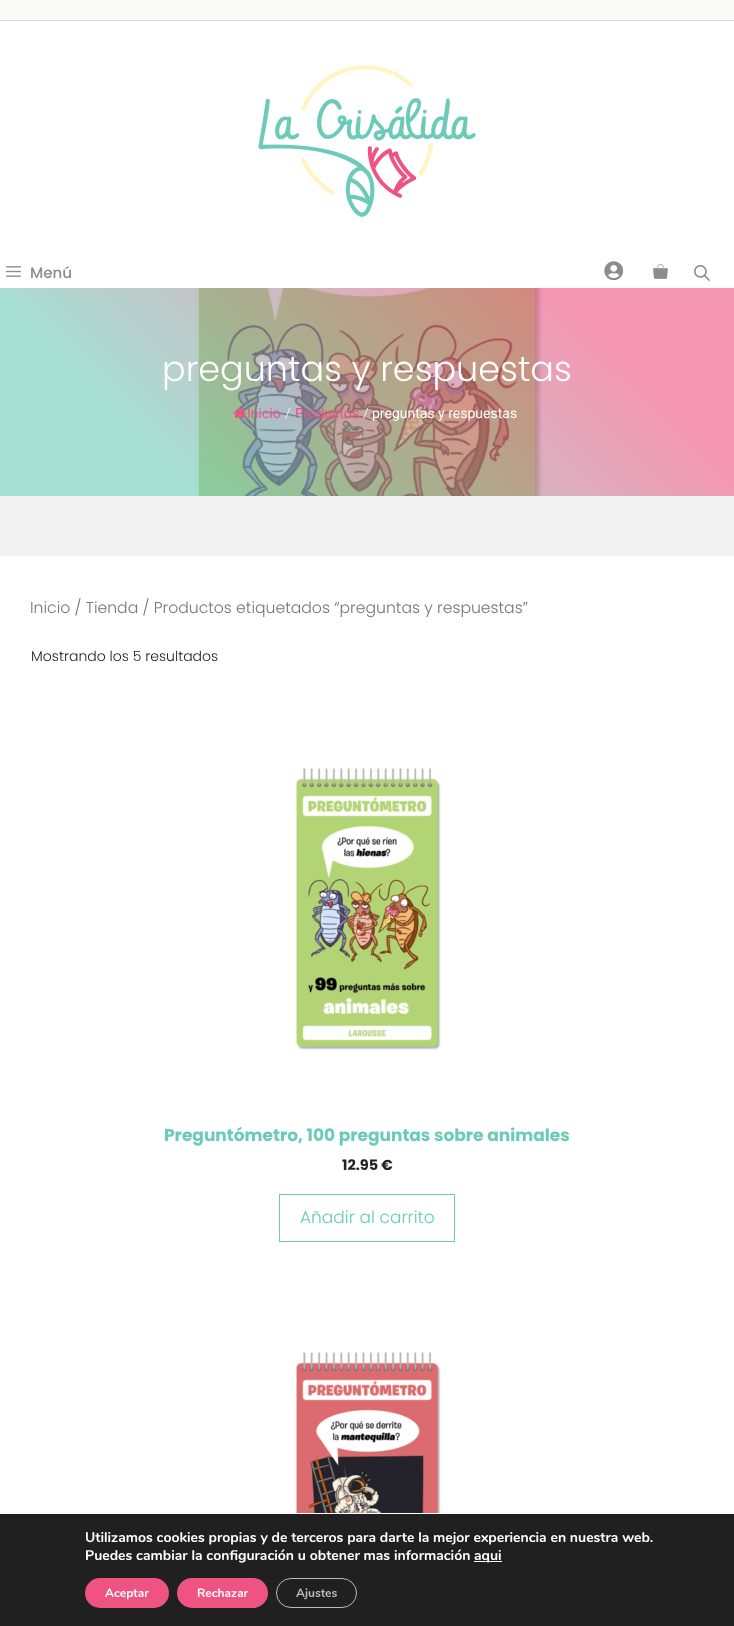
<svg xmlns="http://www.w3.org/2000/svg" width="734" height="1626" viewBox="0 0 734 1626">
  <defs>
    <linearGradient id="g1" gradientUnits="userSpaceOnUse" x1="603" y1="156" x2="132" y2="628"><stop offset="0.2" stop-color="#ee5382"/><stop offset="0.8" stop-color="#6bcbb8"/></linearGradient>
  </defs>
  <rect width="100%" height="100%" fill="#f3f3f3"/>
  <rect x="0" y="0" width="734" height="20" fill="#f9f9f7"/>
  <rect x="0" y="20" width="734" height="1" fill="#dddddd"/>
  <rect x="0" y="21" width="734" height="267" fill="#ffffff"/>
  <image x="258" y="65" width="218" height="152" href="img1.png"/>
  <image x="6" y="266" width="15" height="11" href="img2.png"/>
  <text x="30" y="278" font-family="Poppins" font-size="15" font-weight="500" fill="#8c8c8c">Menú</text>
  <image x="604" y="261" width="19" height="19" href="img3.png"/>
  <image x="653" y="264" width="15" height="15" href="img4.png"/>
  <image x="694" y="265" width="16" height="16" href="img5.png"/>
  <rect x="0" y="288" width="734" height="208" fill="url(#g1)"/>
  <image x="0" y="288" width="734" height="208" href="img6.png"/>
  <text x="162" y="381" font-family="Poppins" font-size="35" font-weight="300" fill="#ffffff">preguntas y respuestas</text>
  <image x="233" y="408" width="13" height="10" href="img7.png"/>
  <text x="247" y="418" font-family="Roboto" font-size="14" fill="#ee5382">Inicio</text>
  <text x="285" y="418" font-family="Roboto" font-size="14" font-weight="300" fill="#ffffff">/</text>
  <text x="295" y="418" font-family="Roboto" font-size="14" fill="#ee5382">Productos</text>
  <text x="363" y="418" font-family="Roboto" font-size="14" font-weight="300" fill="#ffffff">/</text>
  <text x="372" y="418" font-family="Roboto" font-size="14" fill="#ffffff">preguntas y respuestas</text>
  <rect x="0" y="556" width="734" height="958" fill="#ffffff"/>
  <text x="30" y="613" font-family="Poppins" font-size="15.65" font-weight="300" fill="#767676">Inicio / Tienda / Productos etiquetados “preguntas y respuestas”</text>
  <text x="31" y="661" font-family="Poppins" font-size="14" font-weight="300" fill="#222222">Mostrando los 5 resultados</text>
  <image x="296" y="768" width="145" height="282" href="img8.png"/>
  <text x="164" y="1141" font-family="Poppins" font-size="17" font-weight="bold" fill="#6bcbb8">Preguntómetro, 100 preguntas sobre animales</text>
  <text x="342" y="1170" font-family="Poppins" font-size="14.5" font-weight="bold" fill="#222222">12.95 €</text>
  <rect x="279.5" y="1194.5" width="175" height="47" fill="none" stroke="#6bcbb8"/>
  <text x="300" y="1223" font-family="Poppins" font-size="17" font-weight="300" fill="#6bcbb8">Añadir al carrito</text>
  <image x="296" y="1352" width="145" height="161" href="img9.png"/>
  <rect x="0" y="1514" width="734" height="112" fill="#202020"/>
  <text x="85" y="1542" font-family="Nunito" font-size="14" font-weight="bold" fill="#ffffff">Utilizamos cookies propias y de terceros para darte la mejor experiencia en nuestra web.</text>
  <text x="85" y="1560" font-family="Nunito" font-size="14" font-weight="bold" fill="#ffffff">Puedes cambiar la configuración u obtener mas información</text>
  <rect x="474" y="1561" width="28" height="1" fill="#ffffff"/>
  <text x="474" y="1560" font-family="Nunito" font-size="14" font-weight="bold" fill="#ffffff">aqui</text>
  <rect x="85" y="1578" width="84" height="30" rx="15" fill="#ee5382"/>
  <text x="105" y="1597" font-family="Nunito" font-size="12" font-weight="bold" fill="#ffffff">Aceptar</text>
  <rect x="177" y="1578" width="91" height="30" rx="15" fill="#ee5382"/>
  <text x="197" y="1597" font-family="Nunito" font-size="12" font-weight="bold" fill="#ffffff">Rechazar</text>
  <rect x="276.5" y="1578.5" width="80" height="29" rx="14.5" fill="none" stroke="#bcbcbc"/>
  <text x="296" y="1597" font-family="Nunito" font-size="12" font-weight="bold" fill="#bcbcbc">Ajustes</text>
</svg>
